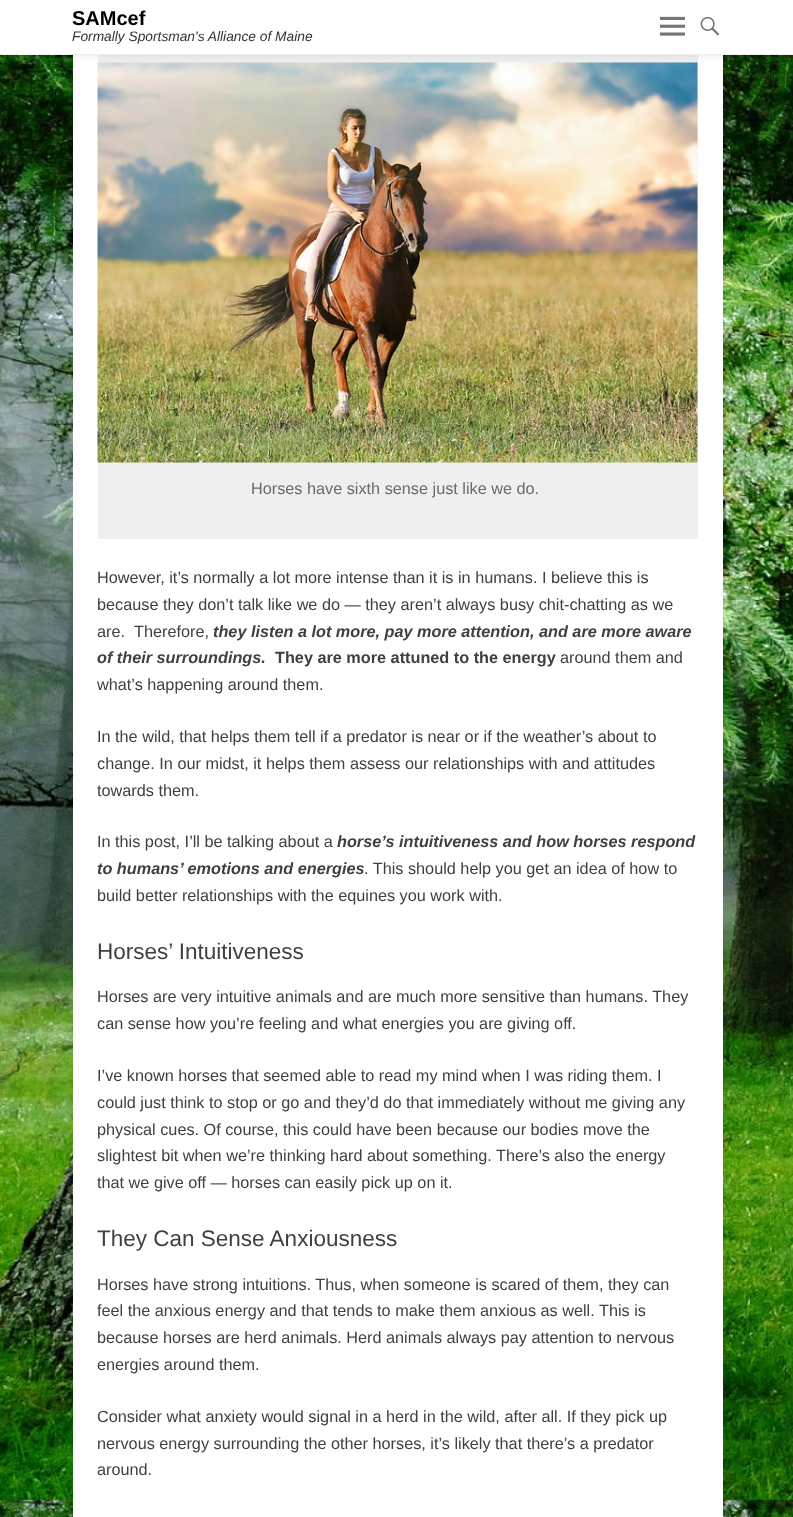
<svg xmlns="http://www.w3.org/2000/svg" width="793" height="1517" viewBox="0 0 793 1517">
  <defs>
    <filter id="blur1" x="-50%" y="-200%" width="200%" height="500%"><feGaussianBlur stdDeviation="4.5"/></filter>
  </defs>
  <rect width="100%" height="100%" fill="#ffffff"/>
  <image x="0" y="55" width="793" height="1462" href="img1.png"/>
  <rect x="73" y="55" width="650" height="1462" fill="#ffffff"/>
  <rect x="98" y="55" width="600" height="484" fill="#efefef"/>
  <image x="97" y="62" width="601" height="401" href="img4.png"/>
  <rect x="0" y="0" width="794" height="55" fill="#000000" fill-opacity="0.1" filter="url(#blur1)"/>
  <rect x="0" y="0" width="793" height="54" fill="#ffffff"/>
  <rect x="0" y="54" width="793" height="1" fill="#eeeeee"/>
  <text x="72" y="25" font-family="Liberation Sans" font-size="20" font-weight="bold" fill="#000000">SAMcef</text>
  <text x="72" y="41" font-family="Liberation Sans" font-size="13.75" font-style="italic" fill="#333333">Formally Sportsman's Alliance of Maine</text>
  <image x="660" y="16" width="25" height="20" href="img2.png"/>
  <image x="700" y="16" width="20" height="20" href="img3.png"/>
  <text x="251" y="494" font-family="Liberation Sans" font-size="16.25" fill="#6a6a6a">Horses have sixth sense just like we do.</text>
  <text x="97" y="583" font-family="Liberation Sans" font-size="16.25" fill="#404040">However, it’s normally a lot more intense than it is in humans. I believe this is</text>
  <text x="97" y="610" font-family="Liberation Sans" font-size="16.25" fill="#404040">because they don’t talk like we do — they aren’t always busy chit-chatting as we</text>
  <text x="97" y="637" font-family="Liberation Sans" font-size="16.25" fill="#404040">are.</text>
  <text x="134" y="637" font-family="Liberation Sans" font-size="16.25" fill="#404040">Therefore,</text>
  <text x="213" y="637" font-family="Liberation Sans" font-size="16.25" font-weight="bold" font-style="italic" fill="#404040">they listen a lot more, pay more attention, and are more aware</text>
  <text x="97" y="663" font-family="Liberation Sans" font-size="16.25" font-weight="bold" font-style="italic" fill="#404040">of their surroundings.</text>
  <text x="275" y="663" font-family="Liberation Sans" font-size="16.25" font-weight="bold" fill="#404040">They are more attuned to the energy</text>
  <text x="560" y="663" font-family="Liberation Sans" font-size="16.25" fill="#404040">around them and</text>
  <text x="97" y="690" font-family="Liberation Sans" font-size="16.25" fill="#404040">what’s happening around them.</text>
  <text x="97" y="742" font-family="Liberation Sans" font-size="16.25" fill="#404040">In the wild, that helps them tell if a predator is near or if the weather’s about to</text>
  <text x="97" y="769" font-family="Liberation Sans" font-size="16.25" fill="#404040">change. In our midst, it helps them assess our relationships with and attitudes</text>
  <text x="97" y="796" font-family="Liberation Sans" font-size="16.25" fill="#404040">towards them.</text>
  <text x="97" y="847" font-family="Liberation Sans" font-size="16.25" fill="#404040">In this post, I’ll be talking about a</text>
  <text x="337" y="847" font-family="Liberation Sans" font-size="16.25" font-weight="bold" font-style="italic" fill="#404040">horse’s intuitiveness and how horses respond</text>
  <text x="97" y="874" font-family="Liberation Sans" font-size="16.25" font-weight="bold" font-style="italic" fill="#404040">to humans’ emotions and energies</text>
  <text x="364" y="874" font-family="Liberation Sans" font-size="16.25" fill="#404040">. This should help you get an idea of how to</text>
  <text x="97" y="901" font-family="Liberation Sans" font-size="16.25" fill="#404040">build better relationships with the equines you work with.</text>
  <text x="97" y="959" font-family="Liberation Sans" font-size="22.5" fill="#404040">Horses’ Intuitiveness</text>
  <text x="97" y="1002" font-family="Liberation Sans" font-size="16.25" fill="#404040">Horses are very intuitive animals and are much more sensitive than humans. They</text>
  <text x="97" y="1029" font-family="Liberation Sans" font-size="16.25" fill="#404040">can sense how you’re feeling and what energies you are giving off.</text>
  <text x="97" y="1081" font-family="Liberation Sans" font-size="16.25" fill="#404040">I’ve known horses that seemed able to read my mind when I was riding them. I</text>
  <text x="97" y="1108" font-family="Liberation Sans" font-size="16.25" fill="#404040">could just think to stop or go and they’d do that immediately without me giving any</text>
  <text x="97" y="1135" font-family="Liberation Sans" font-size="16.25" fill="#404040">physical cues. Of course, this could have been because our bodies move the</text>
  <text x="97" y="1161" font-family="Liberation Sans" font-size="16.25" fill="#404040">slightest bit when we’re thinking hard about something. There’s also the energy</text>
  <text x="97" y="1188" font-family="Liberation Sans" font-size="16.25" fill="#404040">that we give off — horses can easily pick up on it.</text>
  <text x="97" y="1246" font-family="Liberation Sans" font-size="22.5" fill="#404040">They Can Sense Anxiousness</text>
  <text x="97" y="1290" font-family="Liberation Sans" font-size="16.25" fill="#404040">Horses have strong intuitions. Thus, when someone is scared of them, they can</text>
  <text x="97" y="1316" font-family="Liberation Sans" font-size="16.25" fill="#404040">feel the anxious energy and that tends to make them anxious as well. This is</text>
  <text x="97" y="1343" font-family="Liberation Sans" font-size="16.25" fill="#404040">because horses are herd animals. Herd animals always pay attention to nervous</text>
  <text x="97" y="1370" font-family="Liberation Sans" font-size="16.25" fill="#404040">energies around them.</text>
  <text x="97" y="1422" font-family="Liberation Sans" font-size="16.25" fill="#404040">Consider what anxiety would signal in a herd in the wild, after all. If they pick up</text>
  <text x="97" y="1449" font-family="Liberation Sans" font-size="16.25" fill="#404040">nervous energy surrounding the other horses, it’s likely that there’s a predator</text>
  <text x="97" y="1475" font-family="Liberation Sans" font-size="16.25" fill="#404040">around.</text>
</svg>
